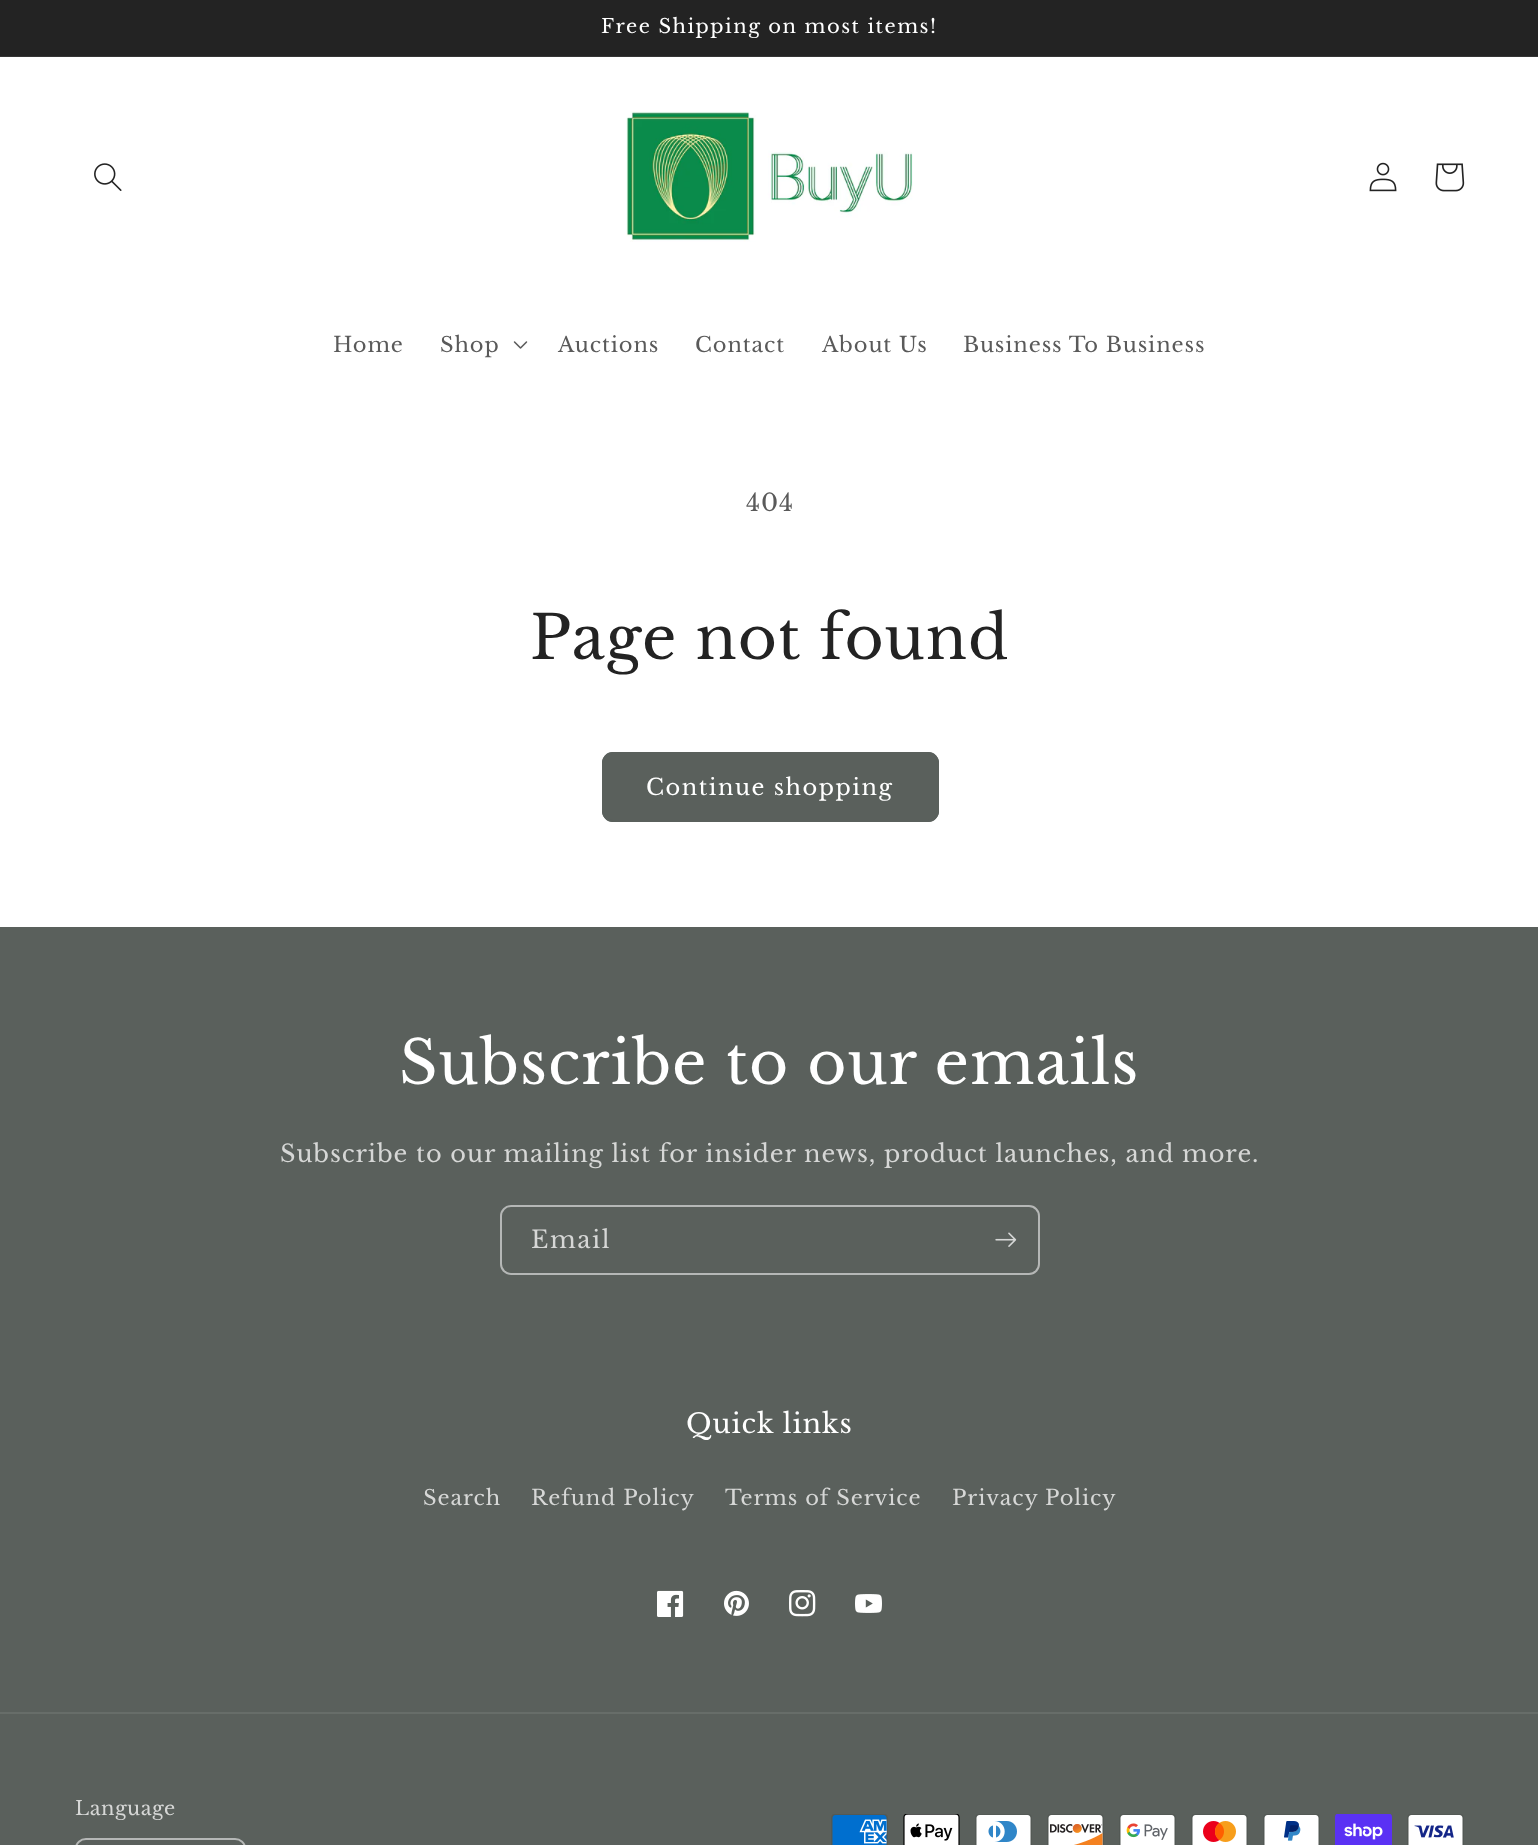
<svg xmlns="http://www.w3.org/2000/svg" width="1538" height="1845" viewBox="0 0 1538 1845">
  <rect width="100%" height="100%" fill="#ffffff"/>
  <rect x="0" y="0" width="1538" height="56" fill="#232323"/>
  <rect x="0" y="56" width="1538" height="1" fill="#353535"/>
  <text x="601" y="33" font-family="Libre Baskerville" font-size="19.5" letter-spacing="1.5" fill="#ffffff">Free Shipping on most items!</text>
  <image x="94" y="163" width="28" height="28" href="img1.png"/>
  <image x="626" y="111" width="287" height="131" href="img2.png"/>
  <image x="1369" y="162" width="28" height="30" href="img3.png"/>
  <image x="1435" y="163" width="30" height="29" href="img4.png"/>
  <text x="333" y="352" font-family="Libre Baskerville" font-size="21" letter-spacing="0.9" fill="#5a5a5a">Home</text>
  <text x="440" y="352" font-family="Libre Baskerville" font-size="21" letter-spacing="0.9" fill="#5a5a5a">Shop</text>
  <image x="513" y="341" width="15" height="8" href="img5.png"/>
  <text x="558" y="352" font-family="Libre Baskerville" font-size="21" letter-spacing="0.9" fill="#5a5a5a">Auctions</text>
  <text x="695" y="352" font-family="Libre Baskerville" font-size="21" letter-spacing="0.9" fill="#5a5a5a">Contact</text>
  <text x="822" y="352" font-family="Libre Baskerville" font-size="21" letter-spacing="0.9" fill="#5a5a5a">About Us</text>
  <text x="963" y="352" font-family="Libre Baskerville" font-size="21" letter-spacing="0.9" fill="#5a5a5a">Business To Business</text>
  <text x="746" y="511" font-family="Libre Baskerville" font-size="24" letter-spacing="0.9" fill="#5a5a5a">404</text>
  <text x="530" y="659" font-family="Libre Baskerville" font-size="60" letter-spacing="0.9" fill="#232323">Page not found</text>
  <rect x="602" y="752" width="337" height="70" rx="11" fill="#5a605c"/>
  <rect x="603" y="753" width="335" height="68" rx="10" fill="none" stroke="#5a605c" stroke-width="2"/>
  <text x="646" y="795" font-family="Libre Baskerville" font-size="22.5" letter-spacing="1.5" fill="#ffffff">Continue shopping</text>
  <rect x="0" y="927" width="1538" height="918" fill="#5a605c"/>
  <text x="399" y="1084" font-family="Libre Baskerville" font-size="60" letter-spacing="0.9" fill="#ffffff">Subscribe to our emails</text>
  <text x="280" y="1162" font-family="Libre Baskerville" font-size="24" letter-spacing="0.9" fill="#d6d7d6">Subscribe to our mailing list for insider news, product launches, and more.</text>
  <rect x="501" y="1206" width="538" height="68" rx="10" fill="none" stroke="#b5b7b6" stroke-width="2"/>
  <text x="531" y="1248" font-family="Libre Baskerville" font-size="24" letter-spacing="1.5" fill="#d6d7d6">Email</text>
  <image x="995" y="1232" width="22" height="15" href="img6.png"/>
  <text x="686" y="1433" font-family="Libre Baskerville" font-size="27" letter-spacing="0.9" fill="#ffffff">Quick links</text>
  <text x="423" y="1505" font-family="Libre Baskerville" font-size="21" letter-spacing="0.9" fill="#d6d7d6">Search</text>
  <text x="531" y="1505" font-family="Libre Baskerville" font-size="21" letter-spacing="0.9" fill="#d6d7d6">Refund Policy</text>
  <text x="725" y="1505" font-family="Libre Baskerville" font-size="21" letter-spacing="0.9" fill="#d6d7d6">Terms of Service</text>
  <text x="952" y="1505" font-family="Libre Baskerville" font-size="21" letter-spacing="0.9" fill="#d6d7d6">Privacy Policy</text>
  <image x="657" y="1590" width="27" height="27" href="img7.png"/>
  <image x="724" y="1590" width="25" height="26" href="img8.png"/>
  <image x="789" y="1590" width="27" height="27" href="img9.png"/>
  <image x="855" y="1594" width="27" height="19" href="img10.png"/>
  <rect x="0" y="1712" width="1538" height="2" fill="#676d69"/>
  <text x="75" y="1815" font-family="Libre Baskerville" font-size="19.5" letter-spacing="0.5" fill="#d6d7d6">Language</text>
  <rect x="76" y="1839" width="169" height="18" rx="10" fill="none" stroke="#b5b7b6" stroke-width="2"/>
  <image x="831" y="1814" width="57" height="31" href="img11.png"/>
  <image x="903" y="1814" width="57" height="31" href="img12.png"/>
  <image x="975" y="1814" width="57" height="31" href="img13.png"/>
  <image x="1047" y="1814" width="57" height="31" href="img14.png"/>
  <image x="1119" y="1814" width="57" height="31" href="img15.png"/>
  <image x="1191" y="1814" width="57" height="31" href="img16.png"/>
  <image x="1263" y="1814" width="57" height="31" href="img17.png"/>
  <image x="1335" y="1814" width="57" height="31" href="img18.png"/>
  <image x="1407" y="1814" width="57" height="31" href="img19.png"/>
</svg>
